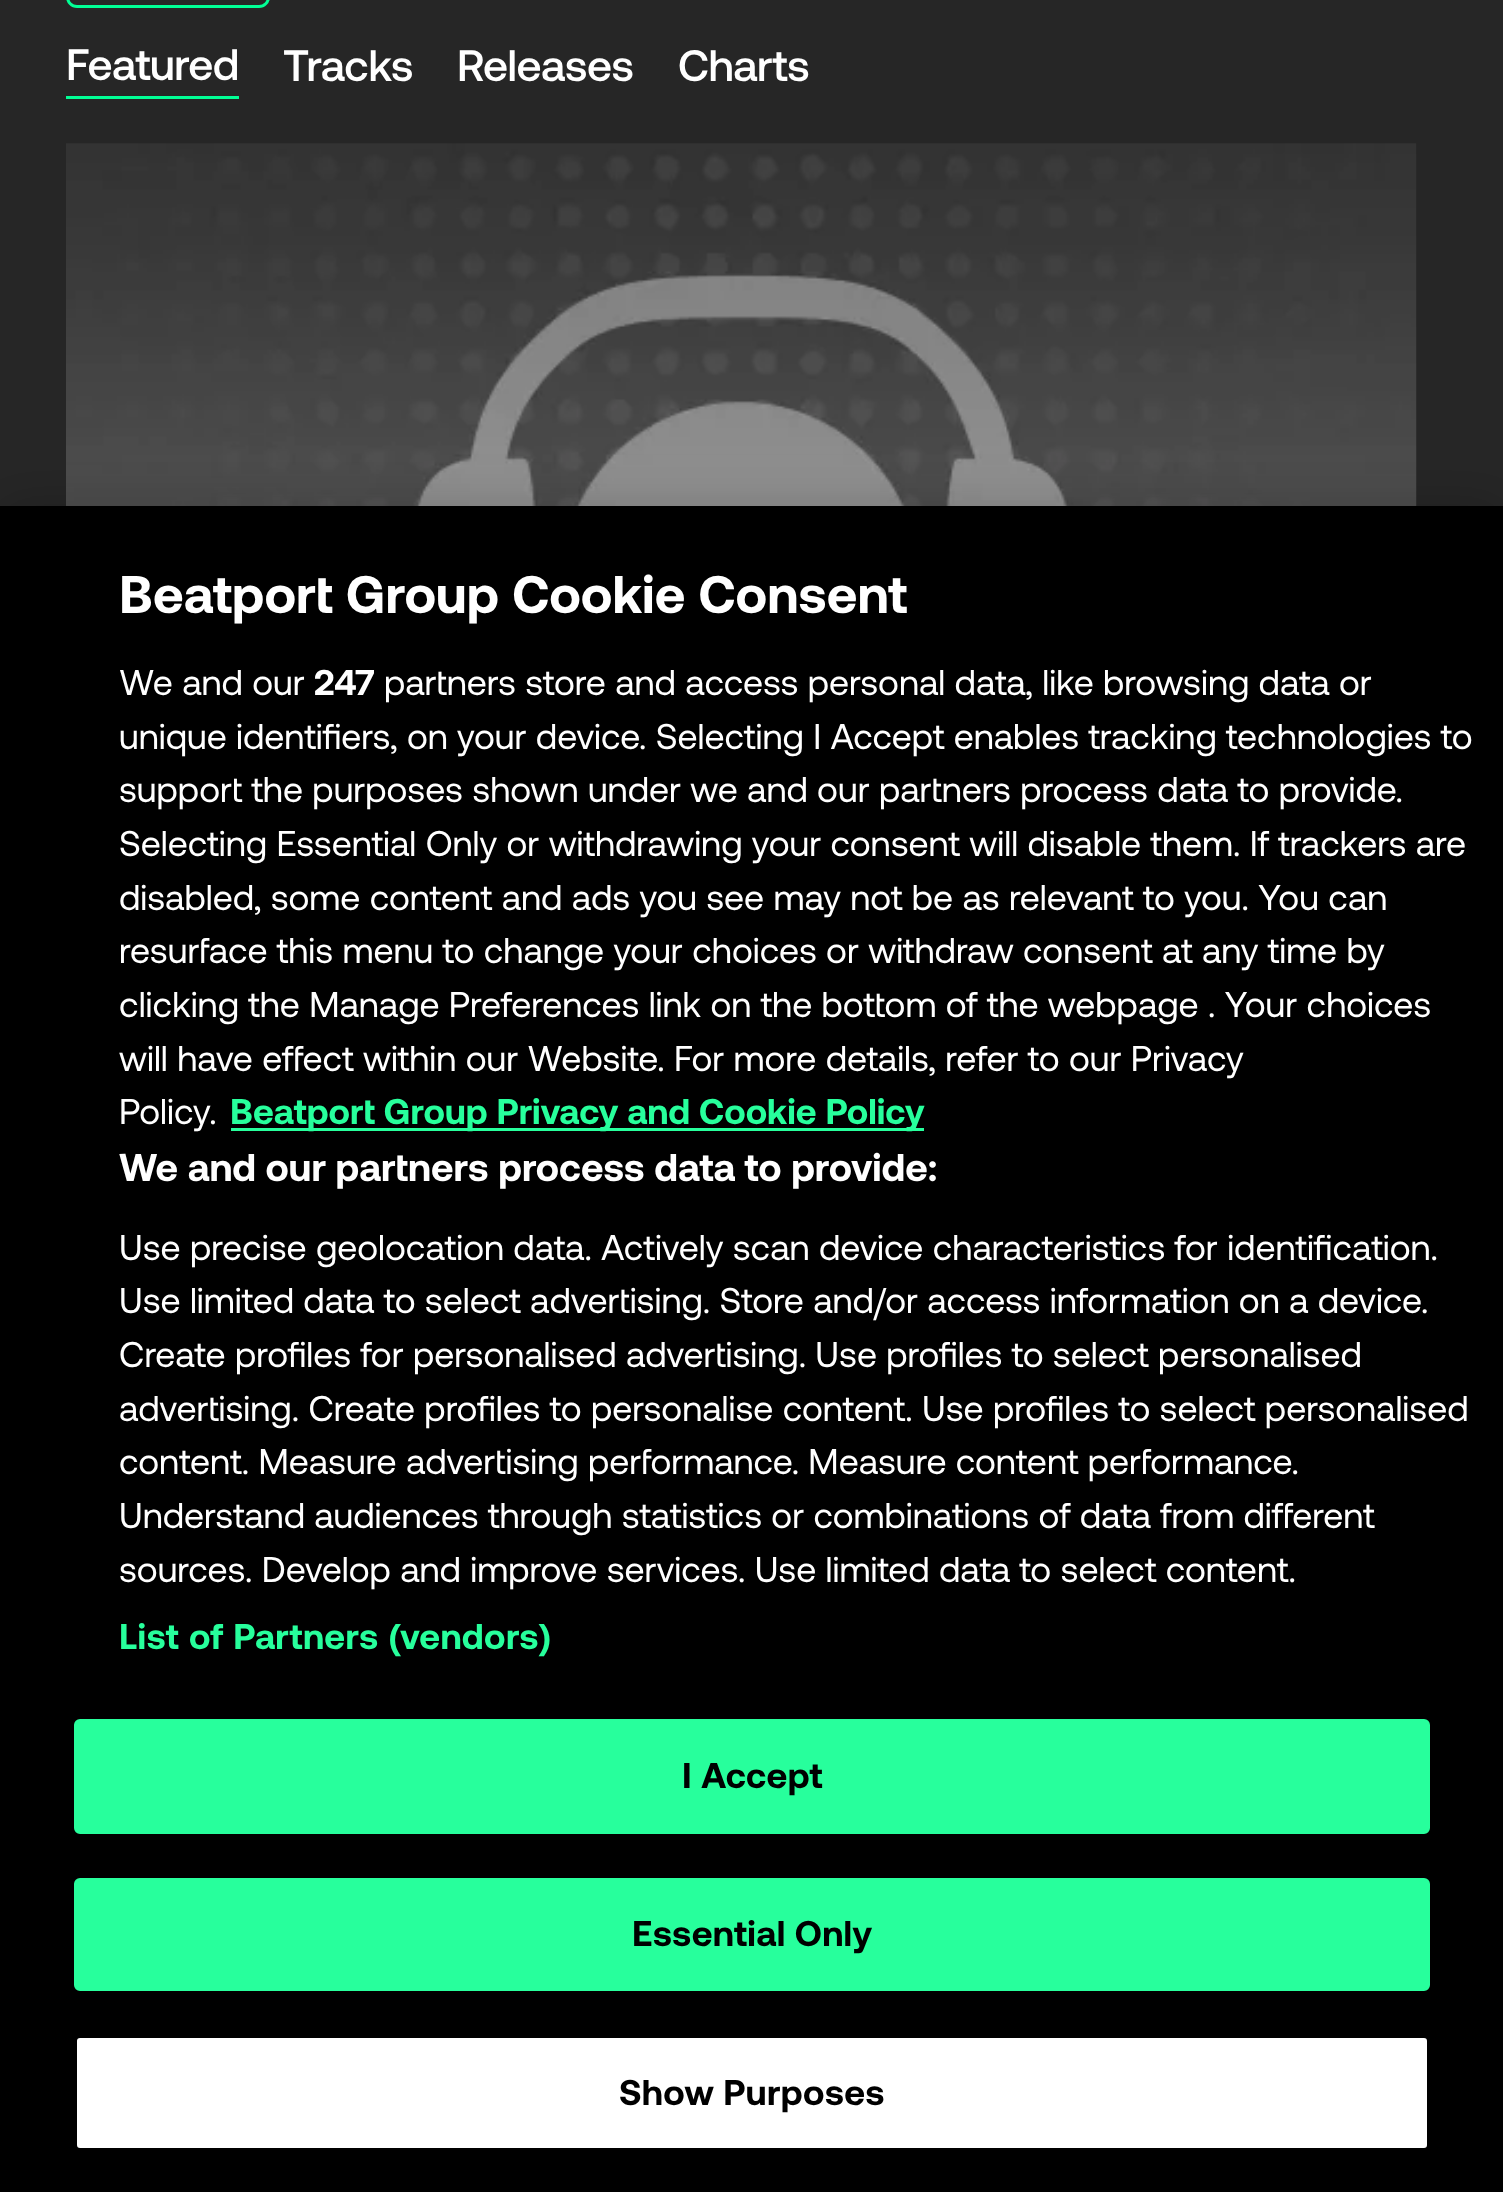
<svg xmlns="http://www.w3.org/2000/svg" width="1503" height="2192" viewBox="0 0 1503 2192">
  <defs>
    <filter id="blur1" x="-50%" y="-200%" width="200%" height="500%"><feGaussianBlur stdDeviation="25"/></filter>
  </defs>
  <rect width="100%" height="100%" fill="#262626"/>
  <rect x="67.5" y="-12.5" width="201" height="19" rx="9.5" fill="none" stroke="#01ff95" stroke-width="3"/>
  <rect x="66" y="96" width="173" height="3" fill="#01ff95"/>
  <text x="66" y="80" font-family="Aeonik" font-size="44" font-weight="500" letter-spacing="-0.5" fill="#ffffff">Featured</text>
  <text x="283" y="81" font-family="Aeonik" font-size="44" font-weight="500" letter-spacing="-0.5" fill="#ffffff">Tracks</text>
  <text x="457" y="81" font-family="Aeonik" font-size="44" font-weight="500" letter-spacing="-0.5" fill="#ffffff">Releases</text>
  <text x="678" y="81" font-family="Aeonik" font-size="44" font-weight="500" letter-spacing="-0.5" fill="#ffffff">Charts</text>
  <image x="66" y="143" width="1351" height="363" href="img1.png"/>
  <rect x="0" y="506" width="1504" height="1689" fill="#000000" fill-opacity="0.2" filter="url(#blur1)"/>
  <rect x="0" y="506" width="1503" height="1686" fill="#000000"/>
  <text x="119" y="613" font-family="Aeonik" font-size="52.75" font-weight="bold" fill="#ffffff">Beatport Group Cookie Consent</text>
  <text x="119" y="695" font-family="Aeonik" font-size="35.75" fill="#ffffff">We and our</text>
  <text x="314" y="695" font-family="Aeonik" font-size="35.75" font-weight="bold" fill="#ffffff">247</text>
  <text x="384" y="695" font-family="Aeonik" font-size="35.75" fill="#ffffff">partners store and access personal data, like browsing data or</text>
  <text x="119" y="749" font-family="Aeonik" font-size="35.75" fill="#ffffff">unique identifiers, on your device. Selecting I Accept enables tracking technologies to</text>
  <text x="119" y="802" font-family="Aeonik" font-size="35.75" fill="#ffffff">support the purposes shown under we and our partners process data to provide.</text>
  <text x="119" y="856" font-family="Aeonik" font-size="35.75" fill="#ffffff">Selecting Essential Only or withdrawing your consent will disable them. If trackers are</text>
  <text x="119" y="910" font-family="Aeonik" font-size="35.75" fill="#ffffff">disabled, some content and ads you see may not be as relevant to you. You can</text>
  <text x="119" y="963" font-family="Aeonik" font-size="35.75" fill="#ffffff">resurface this menu to change your choices or withdraw consent at any time by</text>
  <text x="119" y="1017" font-family="Aeonik" font-size="35.75" fill="#ffffff">clicking the Manage Preferences link on the bottom of the webpage . Your choices</text>
  <text x="119" y="1071" font-family="Aeonik" font-size="35.75" fill="#ffffff">will have effect within our Website. For more details, refer to our Privacy</text>
  <text x="119" y="1124" font-family="Aeonik" font-size="35.75" fill="#ffffff">Policy.</text>
  <rect x="231" y="1128" width="693" height="3" fill="#27ff9c"/>
  <text x="230" y="1124" font-family="Aeonik" font-size="35.75" font-weight="bold" fill="#27ff9c">Beatport Group Privacy and Cookie Policy</text>
  <text x="119" y="1181" font-family="Aeonik" font-size="38.75" font-weight="bold" fill="#ffffff">We and our partners process data to provide:</text>
  <text x="119" y="1260" font-family="Aeonik" font-size="35.75" fill="#ffffff">Use precise geolocation data. Actively scan device characteristics for identification.</text>
  <text x="119" y="1313" font-family="Aeonik" font-size="35.75" fill="#ffffff">Use limited data to select advertising. Store and/or access information on a device.</text>
  <text x="119" y="1367" font-family="Aeonik" font-size="35.75" fill="#ffffff">Create profiles for personalised advertising. Use profiles to select personalised</text>
  <text x="119" y="1421" font-family="Aeonik" font-size="35.75" fill="#ffffff">advertising. Create profiles to personalise content. Use profiles to select personalised</text>
  <text x="119" y="1474" font-family="Aeonik" font-size="35.75" fill="#ffffff">content. Measure advertising performance. Measure content performance.</text>
  <text x="119" y="1528" font-family="Aeonik" font-size="35.75" fill="#ffffff">Understand audiences through statistics or combinations of data from different</text>
  <text x="119" y="1582" font-family="Aeonik" font-size="35.75" fill="#ffffff">sources. Develop and improve services. Use limited data to select content.</text>
  <text x="119" y="1649" word-spacing="0.5" font-family="Aeonik" font-size="35.75" font-weight="bold" letter-spacing="0.35" fill="#27ff9c">List of Partners (vendors)</text>
  <rect x="75.5" y="1720.5" width="1353" height="112" rx="4.5" fill="#27ff9c" stroke="#27ff9c" stroke-width="3"/>
  <text x="682" y="1788" font-family="Aeonik" font-size="35.75" font-weight="bold" letter-spacing="0.35" fill="#000000">I Accept</text>
  <rect x="75.5" y="1879.5" width="1353" height="110" rx="4.5" fill="#27ff9c" stroke="#27ff9c" stroke-width="3"/>
  <text x="632" y="1946" font-family="Aeonik" font-size="35.75" font-weight="bold" letter-spacing="0.35" fill="#000000">Essential Only</text>
  <rect x="75.5" y="2036.5" width="1353" height="113" rx="4.5" fill="#ffffff" stroke="#000000" stroke-width="3"/>
  <text x="619" y="2105" font-family="Aeonik" font-size="35.75" font-weight="bold" letter-spacing="0.35" fill="#000000">Show Purposes</text>
</svg>
